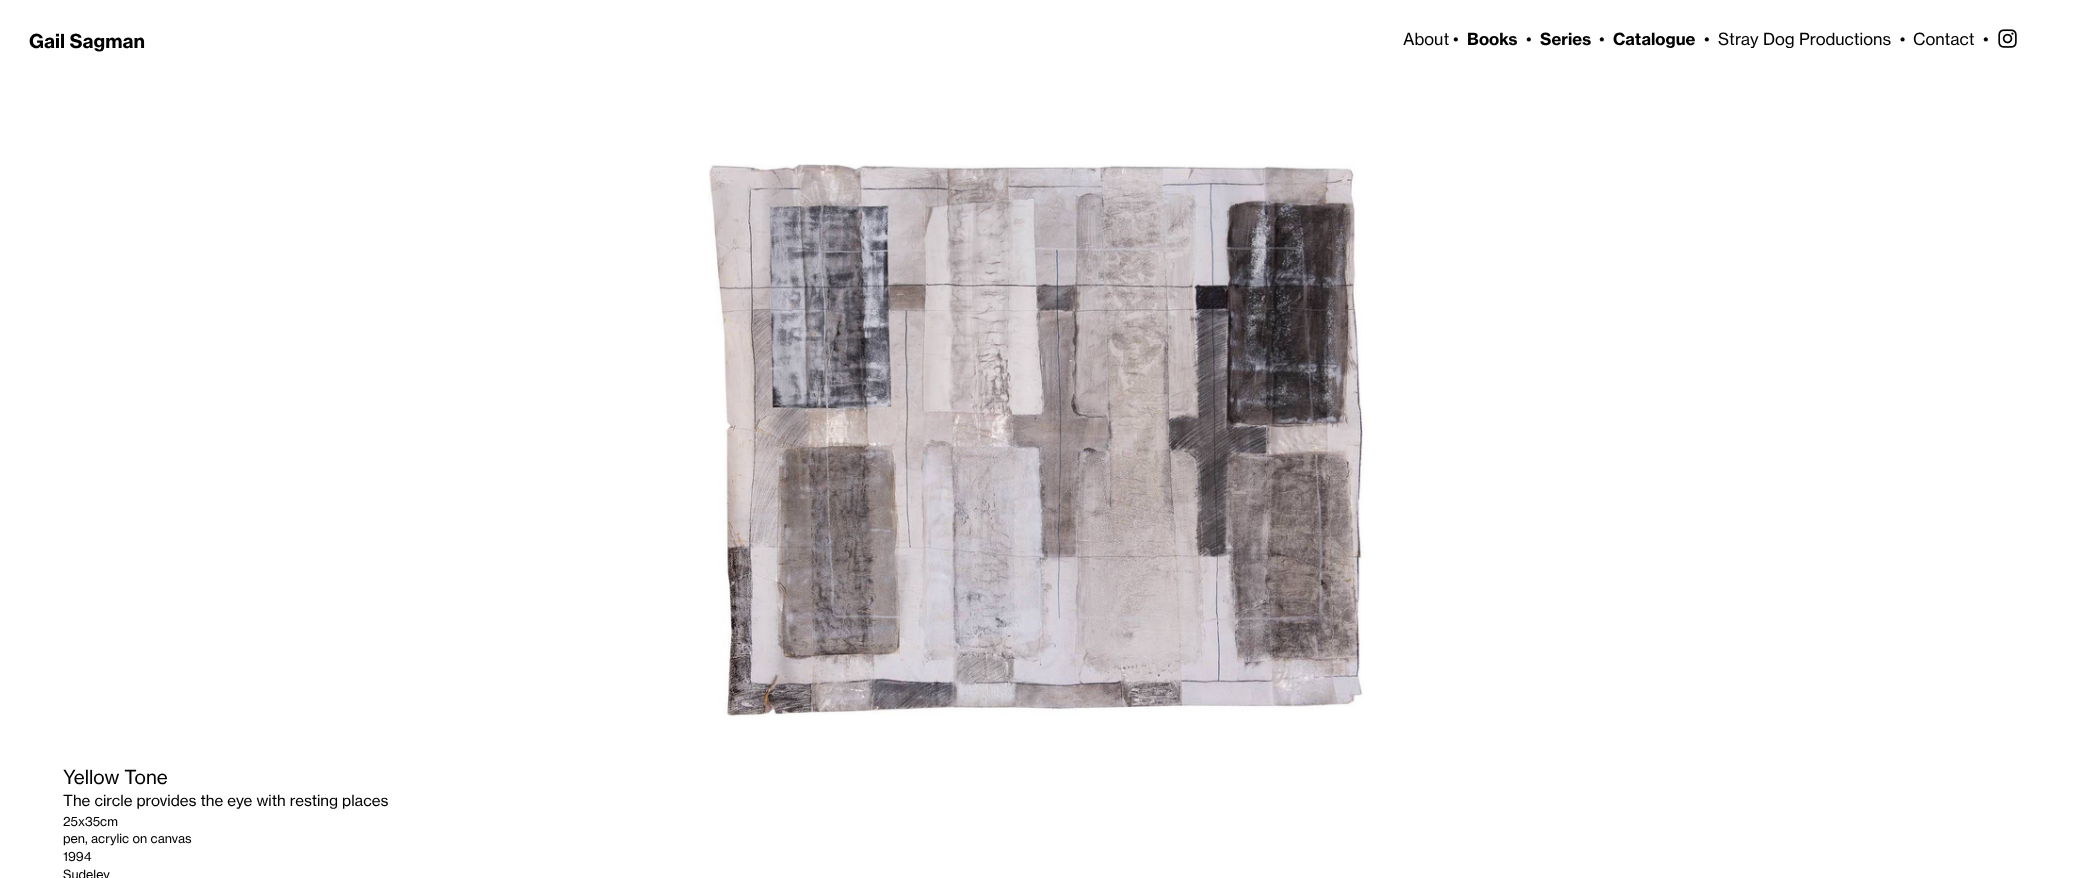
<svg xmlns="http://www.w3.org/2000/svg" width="2076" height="878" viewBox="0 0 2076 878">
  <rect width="100%" height="100%" fill="#ffffff"/>
  <text x="29" y="48" font-family="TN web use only" font-size="19" font-weight="bold" fill="#000000">Gail Sagman</text>
  <text x="1403" y="45" font-family="TN web use only" font-size="16.5" fill="#000000">About</text>
  <text x="1453" y="45" font-family="TN web use only" font-size="16.5" fill="#000000">•</text>
  <text x="1467" y="45" font-family="TN web use only" font-size="16.5" font-weight="bold" fill="#000000">Books</text>
  <text x="1526" y="45" font-family="TN web use only" font-size="16.5" fill="#000000">•</text>
  <text x="1540" y="45" font-family="TN web use only" font-size="16.5" font-weight="bold" fill="#000000">Series</text>
  <text x="1599" y="45" font-family="TN web use only" font-size="16.5" fill="#000000">•</text>
  <text x="1613" y="45" font-family="TN web use only" font-size="16.5" font-weight="bold" fill="#000000">Catalogue</text>
  <text x="1704" y="45" font-family="TN web use only" font-size="16.5" fill="#000000">•</text>
  <text x="1718" y="45" font-family="TN web use only" font-size="16.5" fill="#000000" xml:space="preserve">Stray Dog Productions  •</text>
  <text x="1913" y="45" font-family="TN web use only" font-size="16.5" fill="#000000">Contact</text>
  <text x="1983" y="45" font-family="TN web use only" font-size="16.5" fill="#000000">•</text>
  <image x="1998" y="29" width="19" height="19" href="img1.png"/>
  <image x="708" y="164" width="661" height="554" href="img2.png"/>
  <text x="63" y="784" font-family="TN web use only" font-size="19" fill="#000000">Yellow Tone</text>
  <text x="63" y="806" font-family="TN web use only" font-size="15.2" fill="#000000">The circle provides the eye with resting places</text>
  <text x="63" y="826" font-family="TN web use only" font-size="12.6" fill="#000000">25x35cm</text>
  <text x="63" y="843" font-family="TN web use only" font-size="12.6" fill="#000000">pen, acrylic on canvas</text>
  <text x="63" y="861" font-family="TN web use only" font-size="12.6" fill="#000000">1994</text>
  <text x="63" y="879" font-family="TN web use only" font-size="12.6" fill="#000000">Sudeley</text>
</svg>
